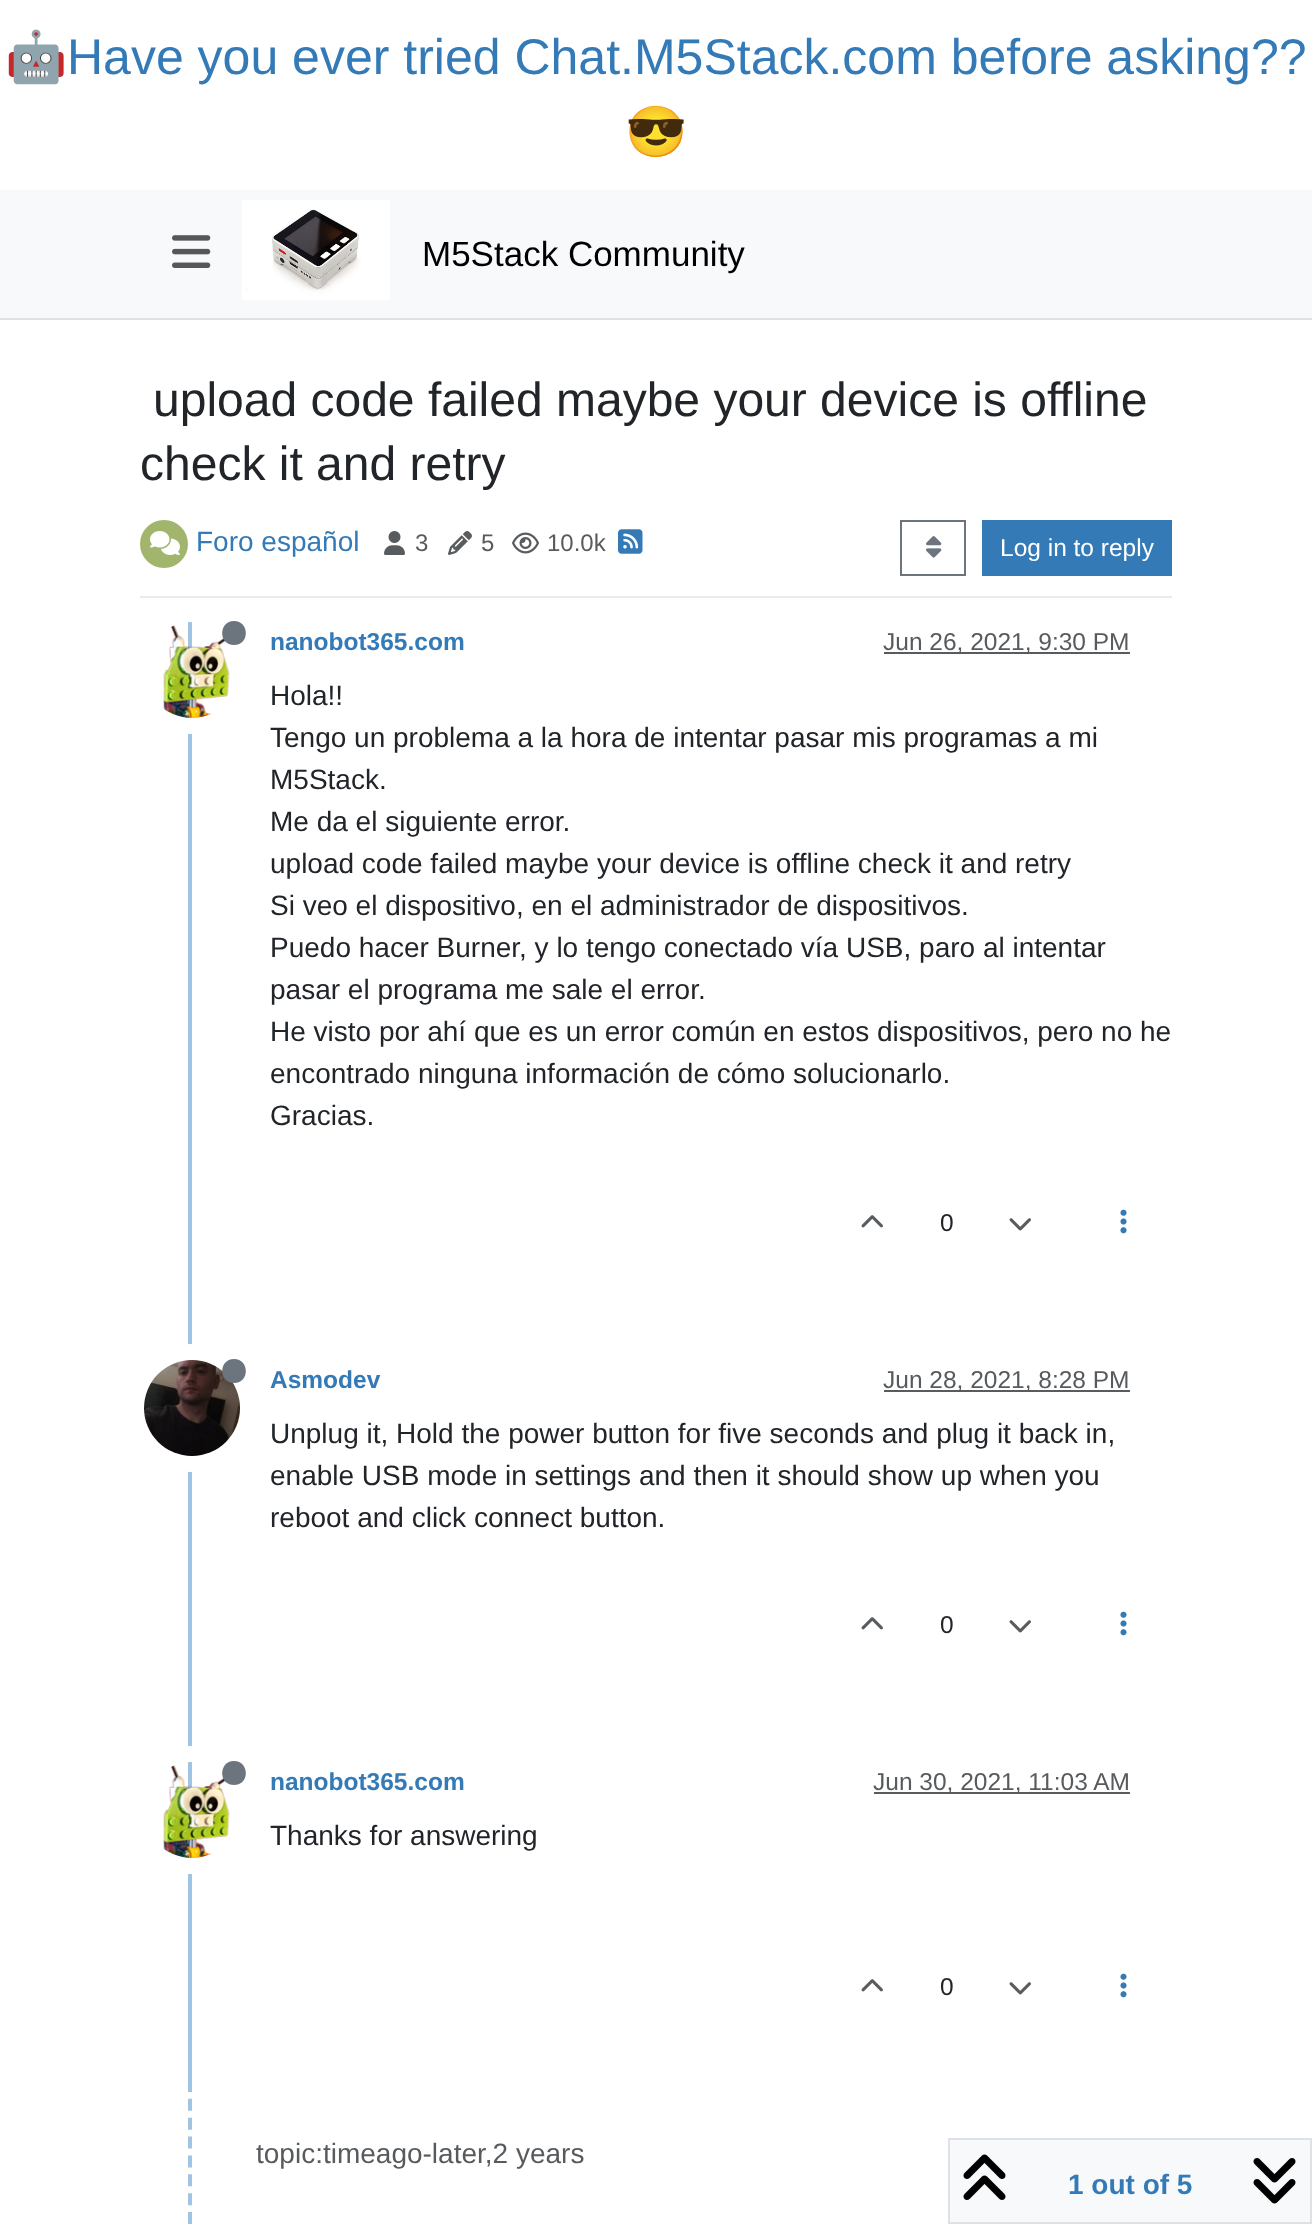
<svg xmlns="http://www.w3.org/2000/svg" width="1312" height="2224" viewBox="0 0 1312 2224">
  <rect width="100%" height="100%" fill="#ffffff"/>
  <text x="5" y="74" font-family="Noto Color Emoji" font-size="50" fill="#337ab7">🤖</text>
  <text x="67" y="74" font-family="Liberation Sans" font-size="50" fill="#337ab7">Have you ever tried Chat.M5Stack.com before asking??</text>
  <text x="625" y="149" font-family="Noto Color Emoji" font-size="50" fill="#337ab7">😎</text>
  <rect x="0" y="190" width="1312" height="128" fill="#f8f9fa"/>
  <rect x="0" y="318" width="1312" height="2" fill="#dee2e6"/>
  <image x="172" y="235" width="39" height="33" href="img1.png"/>
  <image x="242" y="200" width="148" height="100" href="img2.png"/>
  <text x="422" y="266" font-family="Liberation Sans" font-size="35" fill="#000000">M5Stack Community</text>
  <text x="153" y="416" font-family="Liberation Sans" font-size="48" fill="#212529">upload code failed maybe your device is offline</text>
  <text x="140" y="480" font-family="Liberation Sans" font-size="48" fill="#212529">check it and retry</text>
  <rect x="140" y="596" width="1032" height="2" fill="#e9ecef"/>
  <circle cx="164" cy="544" r="24" fill="#a1b56c"/>
  <image x="150" y="531" width="30" height="24" href="img3.png"/>
  <text x="196" y="551" font-family="Liberation Sans" font-size="28" fill="#337ab7">Foro español</text>
  <image x="384" y="531" width="21" height="24" href="img4.png"/>
  <text x="415" y="551" font-family="Liberation Sans" font-size="24" fill="#585b5e">3</text>
  <image x="448" y="531" width="24" height="24" href="img5.png"/>
  <text x="481" y="551" font-family="Liberation Sans" font-size="24" fill="#585b5e">5</text>
  <image x="512" y="532" width="27" height="22" href="img6.png"/>
  <text x="547" y="551" font-family="Liberation Sans" font-size="24" fill="#585b5e">10.0k</text>
  <image x="618" y="529" width="25" height="25" href="img7.png"/>
  <rect x="901" y="521" width="64" height="54" fill="none" stroke="#6c757d" stroke-width="2"/>
  <image x="926" y="536" width="16" height="22" href="img8.png"/>
  <rect x="982" y="520" width="190" height="56" fill="#337ab7"/>
  <text x="1000" y="556" font-family="Liberation Sans" font-size="24.5" fill="#ffffff">Log in to reply</text>
  <rect x="188" y="618" width="4" height="1462" fill="#a0c4e4"/>
  <circle cx="192" cy="670" r="56" fill="none" stroke="#ffffff" stroke-width="16"/>
  <image x="163" y="625" width="67" height="93" href="img9.png"/>
  <path d="M234 645C250 645 249.5 621 234 621C218.5 621 218 645 234 645Z" fill="#6c757d"/>
  <text x="270" y="650" font-family="Liberation Sans" font-size="24.5" font-weight="bold" fill="#337ab7">nanobot365.com</text>
  <rect x="884" y="652" width="246" height="2" fill="#595c5f"/>
  <text x="883" y="650" font-family="Liberation Sans" font-size="24.5" fill="#585b5e">Jun 26, 2021, 9:30 PM</text>
  <text x="270" y="705" font-family="Liberation Sans" font-size="28" fill="#212529">Hola!!</text>
  <text x="270" y="747" font-family="Liberation Sans" font-size="28" fill="#212529">Tengo un problema a la hora de intentar pasar mis programas a mi</text>
  <text x="270" y="789" font-family="Liberation Sans" font-size="28" fill="#212529">M5Stack.</text>
  <text x="270" y="831" font-family="Liberation Sans" font-size="28" fill="#212529">Me da el siguiente error.</text>
  <text x="270" y="873" font-family="Liberation Sans" font-size="28" fill="#212529">upload code failed maybe your device is offline check it and retry</text>
  <text x="270" y="915" font-family="Liberation Sans" font-size="28" fill="#212529">Si veo el dispositivo, en el administrador de dispositivos.</text>
  <text x="270" y="957" font-family="Liberation Sans" font-size="28" fill="#212529">Puedo hacer Burner, y lo tengo conectado vía USB, paro al intentar</text>
  <text x="270" y="999" font-family="Liberation Sans" font-size="28" fill="#212529">pasar el programa me sale el error.</text>
  <text x="270" y="1041" font-family="Liberation Sans" font-size="28" fill="#212529">He visto por ahí que es un error común en estos dispositivos, pero no he</text>
  <text x="270" y="1083" font-family="Liberation Sans" font-size="28" fill="#212529">encontrado ninguna información de cómo solucionarlo.</text>
  <text x="270" y="1125" font-family="Liberation Sans" font-size="28" fill="#212529">Gracias.</text>
  <image x="861" y="1215" width="22" height="13" href="img10.png"/>
  <text x="940" y="1231" font-family="Liberation Sans" font-size="24.5" fill="#212529">0</text>
  <image x="1009" y="1218" width="22" height="13" href="img11.png"/>
  <image x="1120" y="1209" width="7" height="25" href="img12.png"/>
  <circle cx="192" cy="1408" r="56" fill="none" stroke="#ffffff" stroke-width="16"/>
  <image x="144" y="1360" width="96" height="96" href="img13.png"/>
  <path d="M234 1383C250 1383 249.5 1359 234 1359C218.5 1359 218 1383 234 1383Z" fill="#6c757d"/>
  <text x="270" y="1388" font-family="Liberation Sans" font-size="24.5" font-weight="bold" fill="#337ab7">Asmodev</text>
  <rect x="884" y="1390" width="246" height="2" fill="#595c5f"/>
  <text x="883" y="1388" font-family="Liberation Sans" font-size="24.5" fill="#585b5e">Jun 28, 2021, 8:28 PM</text>
  <text x="270" y="1443" font-family="Liberation Sans" font-size="28" fill="#212529">Unplug it, Hold the power button for five seconds and plug it back in,</text>
  <text x="270" y="1485" font-family="Liberation Sans" font-size="28" fill="#212529">enable USB mode in settings and then it should show up when you</text>
  <text x="270" y="1527" font-family="Liberation Sans" font-size="28" fill="#212529">reboot and click connect button.</text>
  <image x="861" y="1617" width="22" height="13" href="img10.png"/>
  <text x="940" y="1633" font-family="Liberation Sans" font-size="24.5" fill="#212529">0</text>
  <image x="1009" y="1620" width="22" height="13" href="img11.png"/>
  <image x="1120" y="1611" width="7" height="25" href="img12.png"/>
  <circle cx="192" cy="1810" r="56" fill="none" stroke="#ffffff" stroke-width="16"/>
  <image x="163" y="1765" width="67" height="93" href="img14.png"/>
  <path d="M234 1785C250 1785 249.5 1761 234 1761C218.5 1761 218 1785 234 1785Z" fill="#6c757d"/>
  <text x="270" y="1790" font-family="Liberation Sans" font-size="24.5" font-weight="bold" fill="#337ab7">nanobot365.com</text>
  <rect x="874" y="1792" width="256" height="2" fill="#595c5f"/>
  <text x="873" y="1790" font-family="Liberation Sans" font-size="24.5" fill="#585b5e">Jun 30, 2021, 11:03 AM</text>
  <text x="270" y="1845" font-family="Liberation Sans" font-size="28" fill="#212529">Thanks for answering</text>
  <image x="861" y="1979" width="22" height="13" href="img10.png"/>
  <text x="940" y="1995" font-family="Liberation Sans" font-size="24.5" fill="#212529">0</text>
  <image x="1009" y="1982" width="22" height="13" href="img11.png"/>
  <image x="1120" y="1973" width="7" height="25" href="img12.png"/>
  <path d="M190 2080V2224" fill="none" stroke="#a0c4e4" stroke-width="4" stroke-dasharray="12 6.86"/>
  <text x="256" y="2163" font-family="Liberation Sans" font-size="28" fill="#585b5e">topic:timeago-later,2 years</text>
  <rect x="949" y="2139" width="362" height="84" fill="#f8f9fa" stroke="#dee2e6" stroke-width="2"/>
  <image x="963" y="2154" width="43" height="46" href="img15.png"/>
  <text x="1068" y="2194" font-family="Liberation Sans" font-size="28" font-weight="bold" fill="#337ab7">1 out of 5</text>
  <image x="1253" y="2158" width="43" height="46" href="img16.png"/>
</svg>
